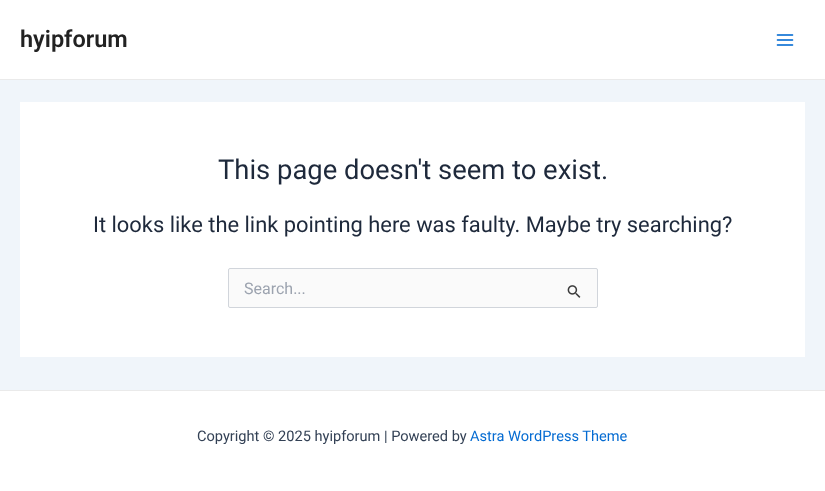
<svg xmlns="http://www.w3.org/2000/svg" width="825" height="491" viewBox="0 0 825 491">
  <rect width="100%" height="100%" fill="#f0f5fa"/>
  <rect x="0" y="0" width="825" height="79" fill="#ffffff"/>
  <rect x="0" y="79" width="825" height="1" fill="#eaeaea"/>
  <text x="20" y="47" font-family="Roboto" font-size="23.5" font-weight="600" fill="#222222">hyipforum</text>
  <image x="776" y="34" width="18" height="12" href="img1.png"/>
  <rect x="20" y="102" width="785" height="255" fill="#ffffff"/>
  <text x="218" y="179" font-family="Roboto" font-size="27.4" fill="#1e293b">This page doesn't seem to exist.</text>
  <text x="93" y="232" font-family="Roboto" font-size="21.9" fill="#1e293b">It looks like the link pointing here was faulty. Maybe try searching?</text>
  <rect x="228.5" y="268.5" width="369" height="39" rx="1.5" fill="#fafafa" stroke="#d1d5db"/>
  <text x="244" y="294" font-family="Roboto" font-size="16" fill="#9ca3af">Search...</text>
  <image x="567" y="285" width="14" height="13" href="img2.png"/>
  <rect x="0" y="391" width="825" height="100" fill="#ffffff"/>
  <rect x="0" y="390" width="825" height="1" fill="#eaeaea"/>
  <text x="197" y="441" font-family="Roboto" font-size="14.6" fill="#334155">Copyright © 2025 hyipforum | Powered by</text>
  <text x="470" y="441" font-family="Roboto" font-size="14.6" fill="#046bd2">Astra WordPress Theme</text>
</svg>
